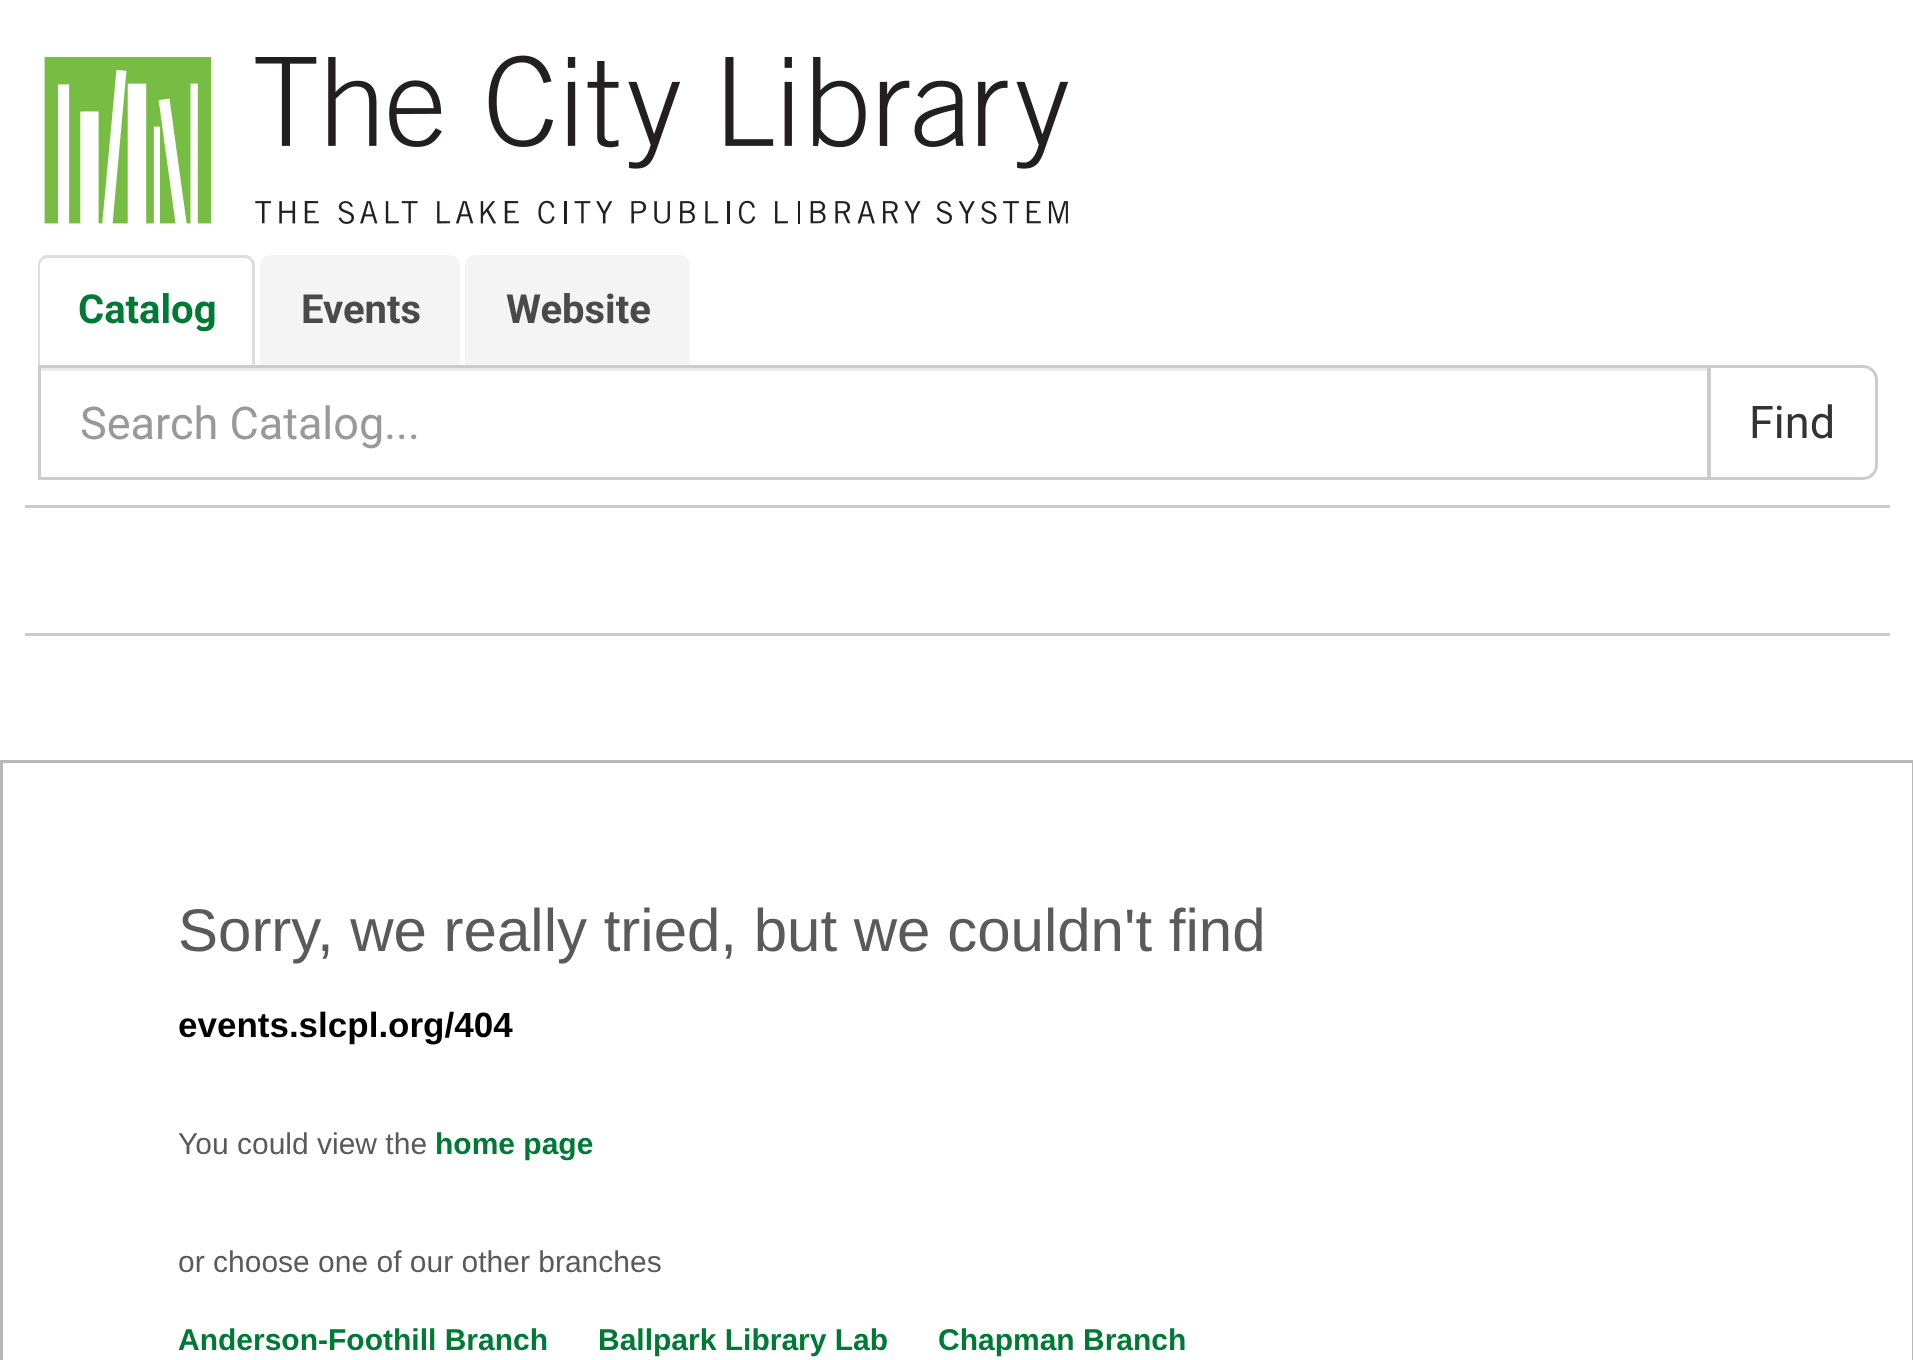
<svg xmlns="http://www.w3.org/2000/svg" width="1913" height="1360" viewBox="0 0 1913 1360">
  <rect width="100%" height="100%" fill="#ffffff"/>
  <image x="44" y="55" width="1025" height="169" href="img1.png"/>
  <path d="M48 255C45 255 42 256 41 258L42 260C44 259 46 258 48 258H245C247 258 249 259 250 260L252 258C250 256 248 255 245 255Z" fill="#dddddd"/>
  <path d="M255 368V265C255 262 254 260 252 258L250 260L252 264V364Z" fill="#dddddd"/>
  <path d="M41 258C39 260 38 262 38 265V367L40 365V265C40 263 41 261 42 260Z" fill="#dddddd"/>
  <text x="78" y="323" font-family="Roboto" font-size="40" font-weight="bold" fill="#007934">Catalog</text>
  <path d="M270 255H450C455.5 255 460 259.5 460 265V368H260V265C260 259.5 264.5 255 270 255Z" fill="#f4f4f4"/>
  <text x="301" y="323" font-family="Roboto" font-size="40" font-weight="bold" fill="#4a4a4a">Events</text>
  <path d="M475 255H680C685.5 255 690 259.5 690 265V368H465V265C465 259.5 469.5 255 475 255Z" fill="#f4f4f4"/>
  <text x="506" y="323" font-family="Roboto" font-size="40" font-weight="bold" fill="#4a4a4a">Website</text>
  <rect x="40" y="368" width="1668" height="3" fill="#ececec"/>
  <rect x="39.5" y="366.5" width="1669" height="112" fill="none" stroke="#cccccc" stroke-width="3"/>
  <text x="80" y="439" font-family="Roboto" font-size="45" fill="#999999">Search Catalog...</text>
  <path d="M1709.5 366.5H1863C1870.5 366.5 1876.5 372.5 1876.5 380V465C1876.5 472.5 1870.5 478.5 1863 478.5H1709.5Z" fill="#ffffff" stroke="#cccccc" stroke-width="3"/>
  <text x="1749" y="438" font-family="Roboto" font-size="45" fill="#333333">Find</text>
  <rect x="25" y="505" width="1865" height="3" fill="#cccccc"/>
  <rect x="25" y="633" width="1865" height="3" fill="#cccccc"/>
  <rect x="1.5" y="761.5" width="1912" height="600" fill="none" stroke="#b8b8b8" stroke-width="3"/>
  <text x="178" y="951" font-family="Liberation Sans" font-size="60" fill="#5a5a5a">Sorry, we really tried, but we couldn't find</text>
  <text x="178" y="1037" font-family="Liberation Sans" font-size="35" font-weight="bold" fill="#000000">events.slcpl.org/404</text>
  <text x="178" y="1154" font-family="Liberation Sans" font-size="30" fill="#5a5a5a">You could view the</text>
  <text x="435" y="1154" font-family="Liberation Sans" font-size="30" font-weight="bold" fill="#007934">home page</text>
  <text x="178" y="1272" font-family="Liberation Sans" font-size="30" fill="#5a5a5a">or choose one of our other branches</text>
  <text x="178" y="1350" font-family="Liberation Sans" font-size="30" font-weight="bold" fill="#007934">Anderson-Foothill Branch</text>
  <text x="598" y="1350" font-family="Liberation Sans" font-size="30" font-weight="bold" fill="#007934">Ballpark Library Lab</text>
  <text x="938" y="1350" font-family="Liberation Sans" font-size="30" font-weight="bold" fill="#007934">Chapman Branch</text>
</svg>
